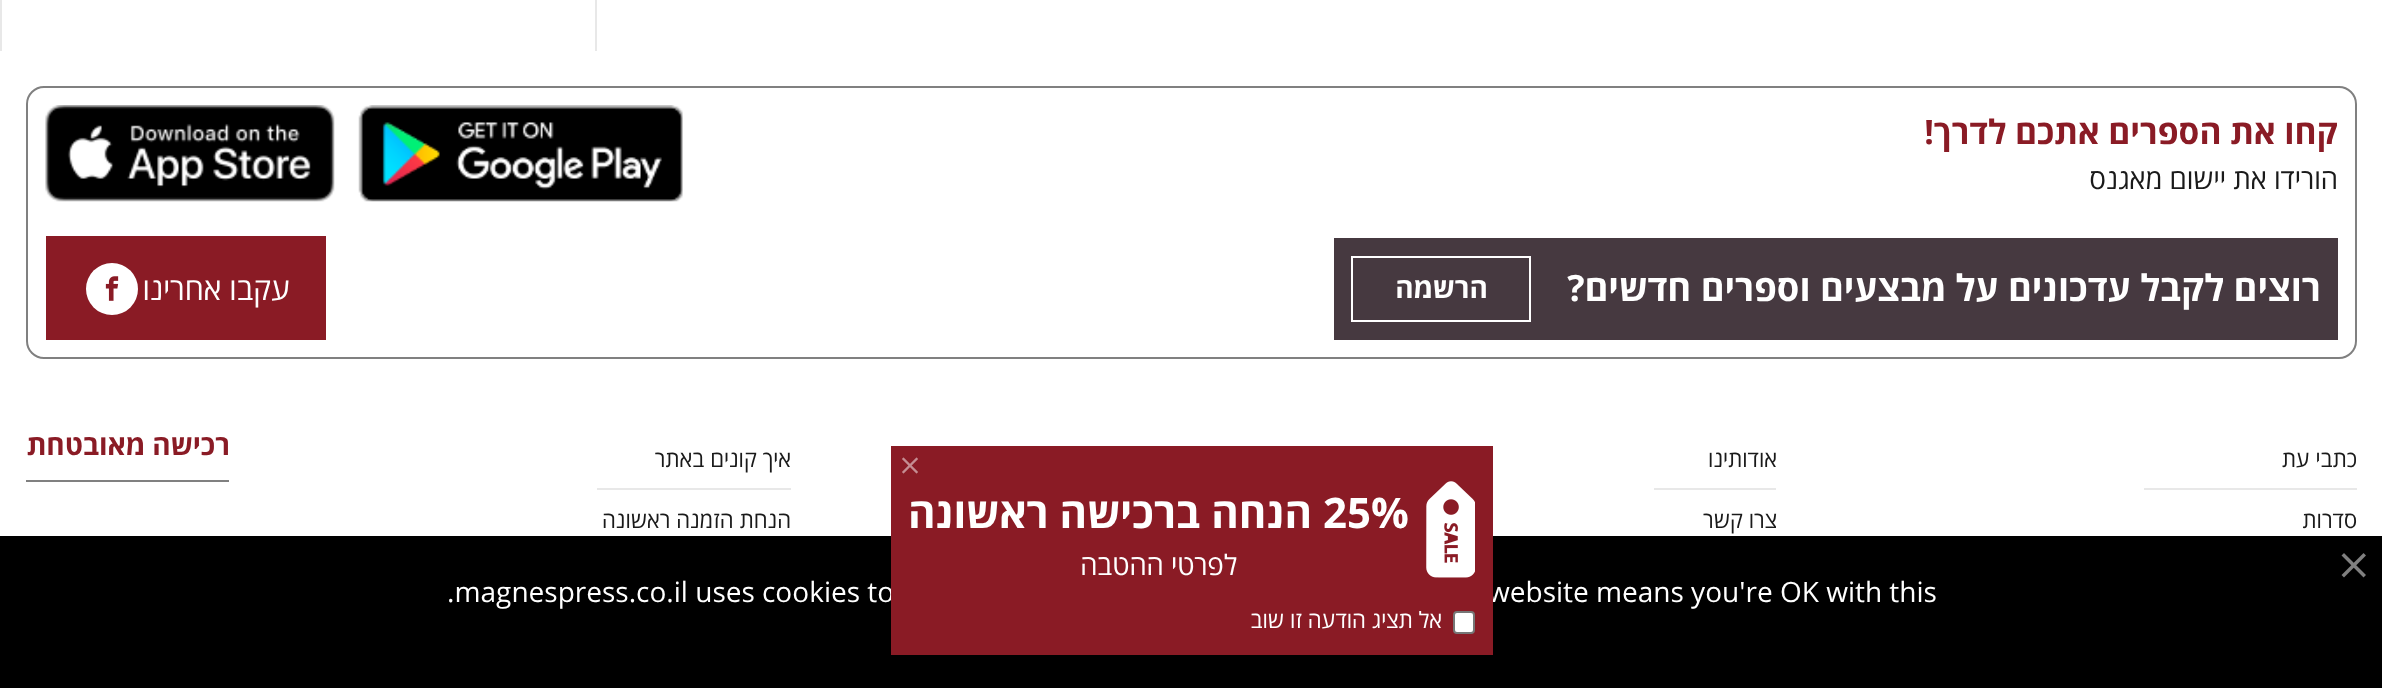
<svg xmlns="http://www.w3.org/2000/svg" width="2382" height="688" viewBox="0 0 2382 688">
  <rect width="100%" height="100%" fill="#ffffff"/>
  <rect x="595" y="0" width="2" height="51" fill="#e8e8e8"/>
  <rect x="0" y="0" width="2" height="51" fill="#e8e8e8"/>
  <rect x="27" y="87" width="2329" height="271" rx="17" fill="none" stroke="#808080" stroke-width="2"/>
  <text x="2338" y="144" font-family="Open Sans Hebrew" font-size="33.6" font-weight="bold" direction="rtl" fill="#8a1b25">קחו את הספרים אתכם לדרך!</text>
  <text x="2338" y="189" font-family="Open Sans Hebrew" font-size="28" direction="rtl" fill="#1a1a1a">הורידו את יישום מאגנס</text>
  <image x="358" y="105" width="325" height="97" href="img1.png"/>
  <image x="45" y="105" width="290" height="97" href="img2.png"/>
  <rect x="1334" y="238" width="1004" height="102" fill="#463940"/>
  <text x="2321" y="301" font-family="Open Sans Hebrew" font-size="36.4" font-weight="bold" direction="rtl" fill="#ffffff">רוצים לקבל עדכונים על מבצעים וספרים חדשים?</text>
  <rect x="1352" y="257" width="178" height="64" fill="none" stroke="#ffffff" stroke-width="2"/>
  <text x="1488" y="298" font-family="Open Sans Hebrew" font-size="28" font-weight="bold" direction="rtl" fill="#ffffff">הרשמה</text>
  <rect x="46" y="236" width="280" height="104" fill="#8a1b25"/>
  <text x="290" y="300" font-family="Open Sans Hebrew" font-size="31" direction="rtl" fill="#ffffff">עקבו אחרינו</text>
  <circle cx="112" cy="289" r="26" fill="#ffffff"/>
  <image x="105" y="276" width="14" height="25" href="img3.png"/>
  <rect x="26" y="480" width="203" height="2" fill="#808080"/>
  <text x="230" y="455" font-family="Open Sans Hebrew" font-size="28" font-weight="bold" direction="rtl" fill="#8a1b25">רכישה מאובטחת</text>
  <rect x="2144" y="488" width="213" height="2" fill="#e8e8e8"/>
  <text x="2357" y="467" font-family="Open Sans Hebrew" font-size="22.5" direction="rtl" fill="#1a1a1a">כתבי עת</text>
  <text x="2357" y="528" font-family="Open Sans Hebrew" font-size="22.5" direction="rtl" fill="#1a1a1a">סדרות</text>
  <rect x="1654" y="488" width="122" height="2" fill="#e8e8e8"/>
  <text x="1777" y="467" font-family="Open Sans Hebrew" font-size="22.5" direction="rtl" fill="#1a1a1a">אודותינו</text>
  <text x="1777" y="528" font-family="Open Sans Hebrew" font-size="22.5" direction="rtl" fill="#1a1a1a">צרו קשר</text>
  <rect x="597" y="488" width="194" height="2" fill="#e8e8e8"/>
  <text x="791" y="467" font-family="Open Sans Hebrew" font-size="22.5" direction="rtl" fill="#1a1a1a">איך קונים באתר</text>
  <text x="791" y="528" font-family="Open Sans Hebrew" font-size="22.5" direction="rtl" fill="#1a1a1a">הנחת הזמנה ראשונה</text>
  <rect x="0" y="536" width="2382" height="152" fill="#000000"/>
  <text x="1488" y="602" font-family="Open Sans Hebrew" font-size="28" fill="#ffffff">website means you're OK with this</text>
  <text x="447" y="602" font-family="Open Sans Hebrew" font-size="28" fill="#ffffff">.magnespress.co.il uses cookies to</text>
  <rect x="891" y="446" width="602" height="209" fill="#8a1b25"/>
  <image x="902" y="457" width="16" height="17" href="img4.png"/>
  <image x="1426" y="481" width="49" height="97" href="img5.png"/>
  <text x="1323" y="528" font-family="Open Sans Hebrew" font-size="42" font-weight="bold" fill="#ffffff">25%</text>
  <text x="1312" y="528" font-family="Open Sans Hebrew" font-size="42" font-weight="bold" direction="rtl" fill="#ffffff">הנחה ברכישה ראשונה</text>
  <text x="1237" y="575" font-family="Open Sans Hebrew" font-size="28" direction="rtl" fill="#ffffff">לפרטי ההטבה</text>
  <rect x="1454" y="612" width="20" height="21" rx="3" fill="#ffffff" stroke="#767676" stroke-width="2"/>
  <text x="1442" y="628" font-family="Open Sans Hebrew" font-size="22.5" direction="rtl" fill="#ffffff">אל תציג הודעה זו שוב</text>
  <image x="2341" y="553" width="25" height="25" href="img6.png"/>
</svg>
